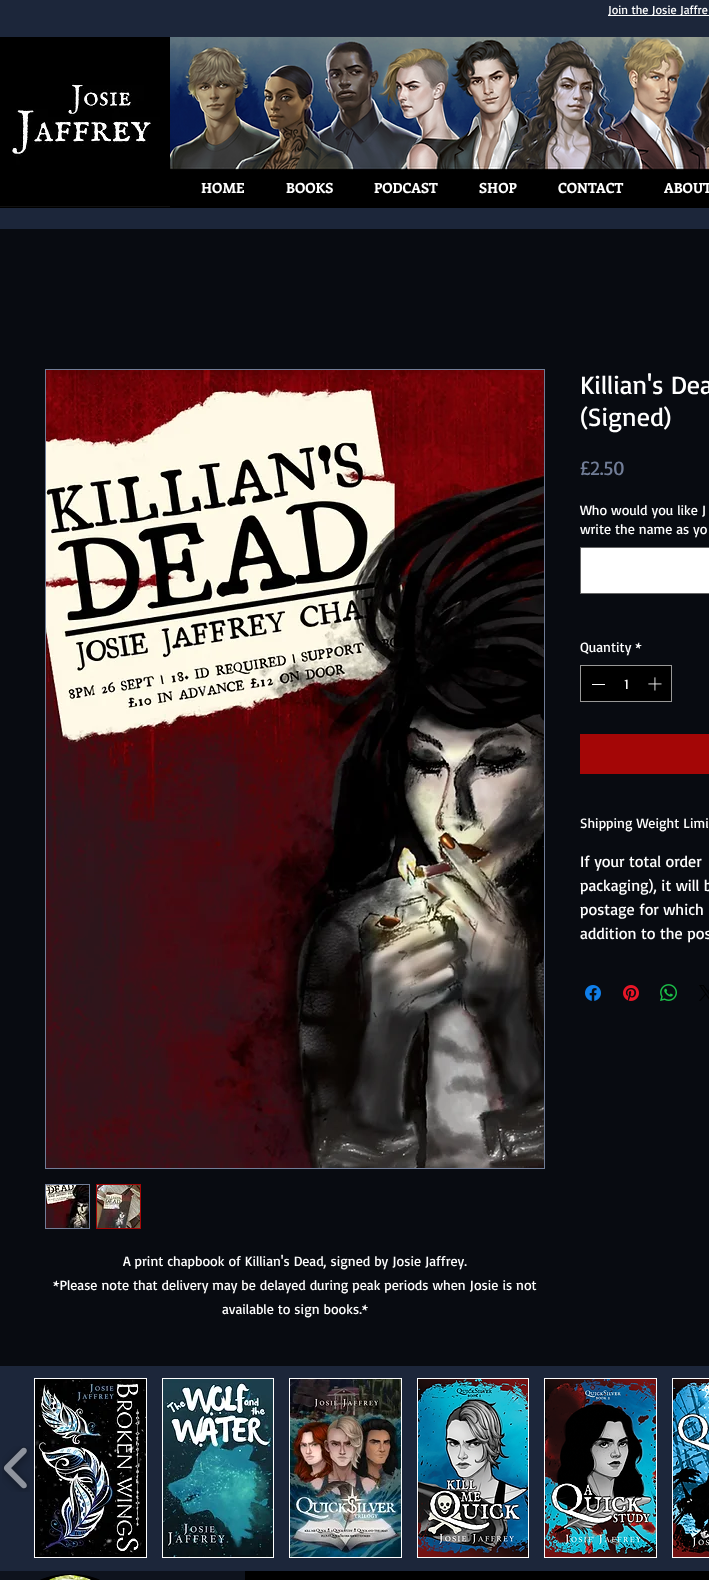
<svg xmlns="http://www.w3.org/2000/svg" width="709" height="1580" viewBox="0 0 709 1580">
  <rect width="100%" height="100%" fill="#1c263a"/>
  <rect x="608" y="15" width="101" height="1" fill="#ffffff"/>
  <text x="608" y="14" font-family="Basic" font-size="12" fill="#ffffff">Join the Josie Jaffre</text>
  <rect x="0" y="170" width="709" height="38" fill="#000000"/>
  <image x="0" y="37" width="170" height="170" href="img1.png"/>
  <image x="170" y="37" width="539" height="133" href="img2.png"/>
  <text x="201" y="193" font-family="Enriqueta" font-size="14" font-weight="bold" fill="#ffffff">HOME</text>
  <text x="286" y="193" font-family="Enriqueta" font-size="14" font-weight="bold" fill="#ffffff">BOOKS</text>
  <text x="374" y="193" font-family="Enriqueta" font-size="14" font-weight="bold" fill="#ffffff">PODCAST</text>
  <text x="479" y="193" font-family="Enriqueta" font-size="14" font-weight="bold" fill="#ffffff">SHOP</text>
  <text x="558" y="193" font-family="Enriqueta" font-size="14" font-weight="bold" fill="#ffffff">CONTACT</text>
  <text x="664" y="193" font-family="Enriqueta" font-size="14" font-weight="bold" fill="#ffffff">ABOUT</text>
  <rect x="0" y="229" width="709" height="1137" fill="#080b11"/>
  <text x="580" y="394" font-family="Basic" font-size="26" fill="#ffffff">Killian's Dea</text>
  <text x="580" y="426" font-family="Basic" font-size="26" fill="#ffffff">(Signed)</text>
  <text x="580" y="475" font-family="Basic" font-size="20" fill="#717d97">£2.50</text>
  <text x="580" y="515" font-family="Basic" font-size="14" fill="#ffffff">Who would you like J</text>
  <text x="580" y="534" font-family="Basic" font-size="14" fill="#ffffff">write the name as yo</text>
  <rect x="580.5" y="547.5" width="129" height="46" fill="#ffffff" stroke="#666666"/>
  <text x="580" y="652" font-family="Basic" font-size="14" fill="#ffffff">Quantity *</text>
  <rect x="580.5" y="665.5" width="91" height="36" fill="#000000" stroke="#999998"/>
  <rect x="592" y="684" width="13" height="1" fill="#ffffff"/>
  <text x="624" y="689" font-family="Basic" font-size="14" fill="#ffffff">1</text>
  <image x="648" y="677" width="14" height="14" href="img3.png"/>
  <rect x="580" y="734" width="129" height="40" fill="#a40606"/>
  <text x="580" y="828" font-family="Basic" font-size="14" fill="#ffffff">Shipping Weight Limi</text>
  <text x="580" y="867" font-family="Basic" font-size="16" fill="#ffffff">If your total order</text>
  <text x="580" y="891" font-family="Basic" font-size="16" fill="#ffffff">packaging), it will b</text>
  <text x="580" y="915" font-family="Basic" font-size="16" fill="#ffffff">postage for which</text>
  <text x="580" y="939" font-family="Basic" font-size="16" fill="#ffffff">addition to the pos</text>
  <image x="585" y="985" width="16" height="16" href="img4.png"/>
  <image x="623" y="985" width="16" height="16" href="img5.png"/>
  <image x="660" y="984" width="17" height="17" href="img6.png"/>
  <image x="699" y="985" width="10" height="16" href="img7.png"/>
  <rect x="45.5" y="369.5" width="499" height="799" fill="none" stroke="#717d97"/>
  <image x="46" y="370" width="498" height="798" href="img8.png"/>
  <rect x="45.5" y="1184.5" width="44" height="44" fill="none" stroke="#717d97"/>
  <image x="46" y="1185" width="43" height="43" href="img9.png"/>
  <rect x="96.5" y="1184.5" width="44" height="44" fill="none" stroke="#a40606"/>
  <image x="97" y="1185" width="43" height="43" href="img10.png"/>
  <text x="123" y="1266" font-family="Basic" font-size="14" fill="#ffffff">A print chapbook of Killian's Dead, signed by Josie Jaffrey.</text>
  <text x="53" y="1290" font-family="Basic" font-size="14" fill="#ffffff">*Please note that delivery may be delayed during peak periods when Josie is not</text>
  <text x="222" y="1314" font-family="Basic" font-size="14" fill="#ffffff">available to sign books.*</text>
  <image x="2" y="1446" width="28" height="46" href="img11.png"/>
  <rect x="34" y="1378" width="113" height="180" fill="#ffffff"/>
  <image x="35" y="1379" width="111" height="178" href="img12.png"/>
  <rect x="162" y="1378" width="112" height="180" fill="#ffffff"/>
  <image x="163" y="1379" width="110" height="178" href="img13.png"/>
  <rect x="289" y="1378" width="113" height="180" fill="#ffffff"/>
  <image x="290" y="1379" width="111" height="178" href="img14.png"/>
  <rect x="417" y="1378" width="112" height="180" fill="#ffffff"/>
  <image x="418" y="1379" width="110" height="178" href="img15.png"/>
  <rect x="544" y="1378" width="113" height="180" fill="#ffffff"/>
  <image x="545" y="1379" width="111" height="178" href="img16.png"/>
  <rect x="672" y="1378" width="37" height="180" fill="#ffffff"/>
  <image x="673" y="1379" width="36" height="178" href="img17.png"/>
  <rect x="0" y="1571" width="245" height="9" fill="#0e131d"/>
  <rect x="21.5" y="1574.5" width="97" height="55" rx="48" fill="#000000" stroke="#000000"/>
  <image x="49" y="1575" width="42" height="5" href="img18.png"/>
  <rect x="245" y="1571" width="464" height="9" fill="#000000"/>
</svg>
